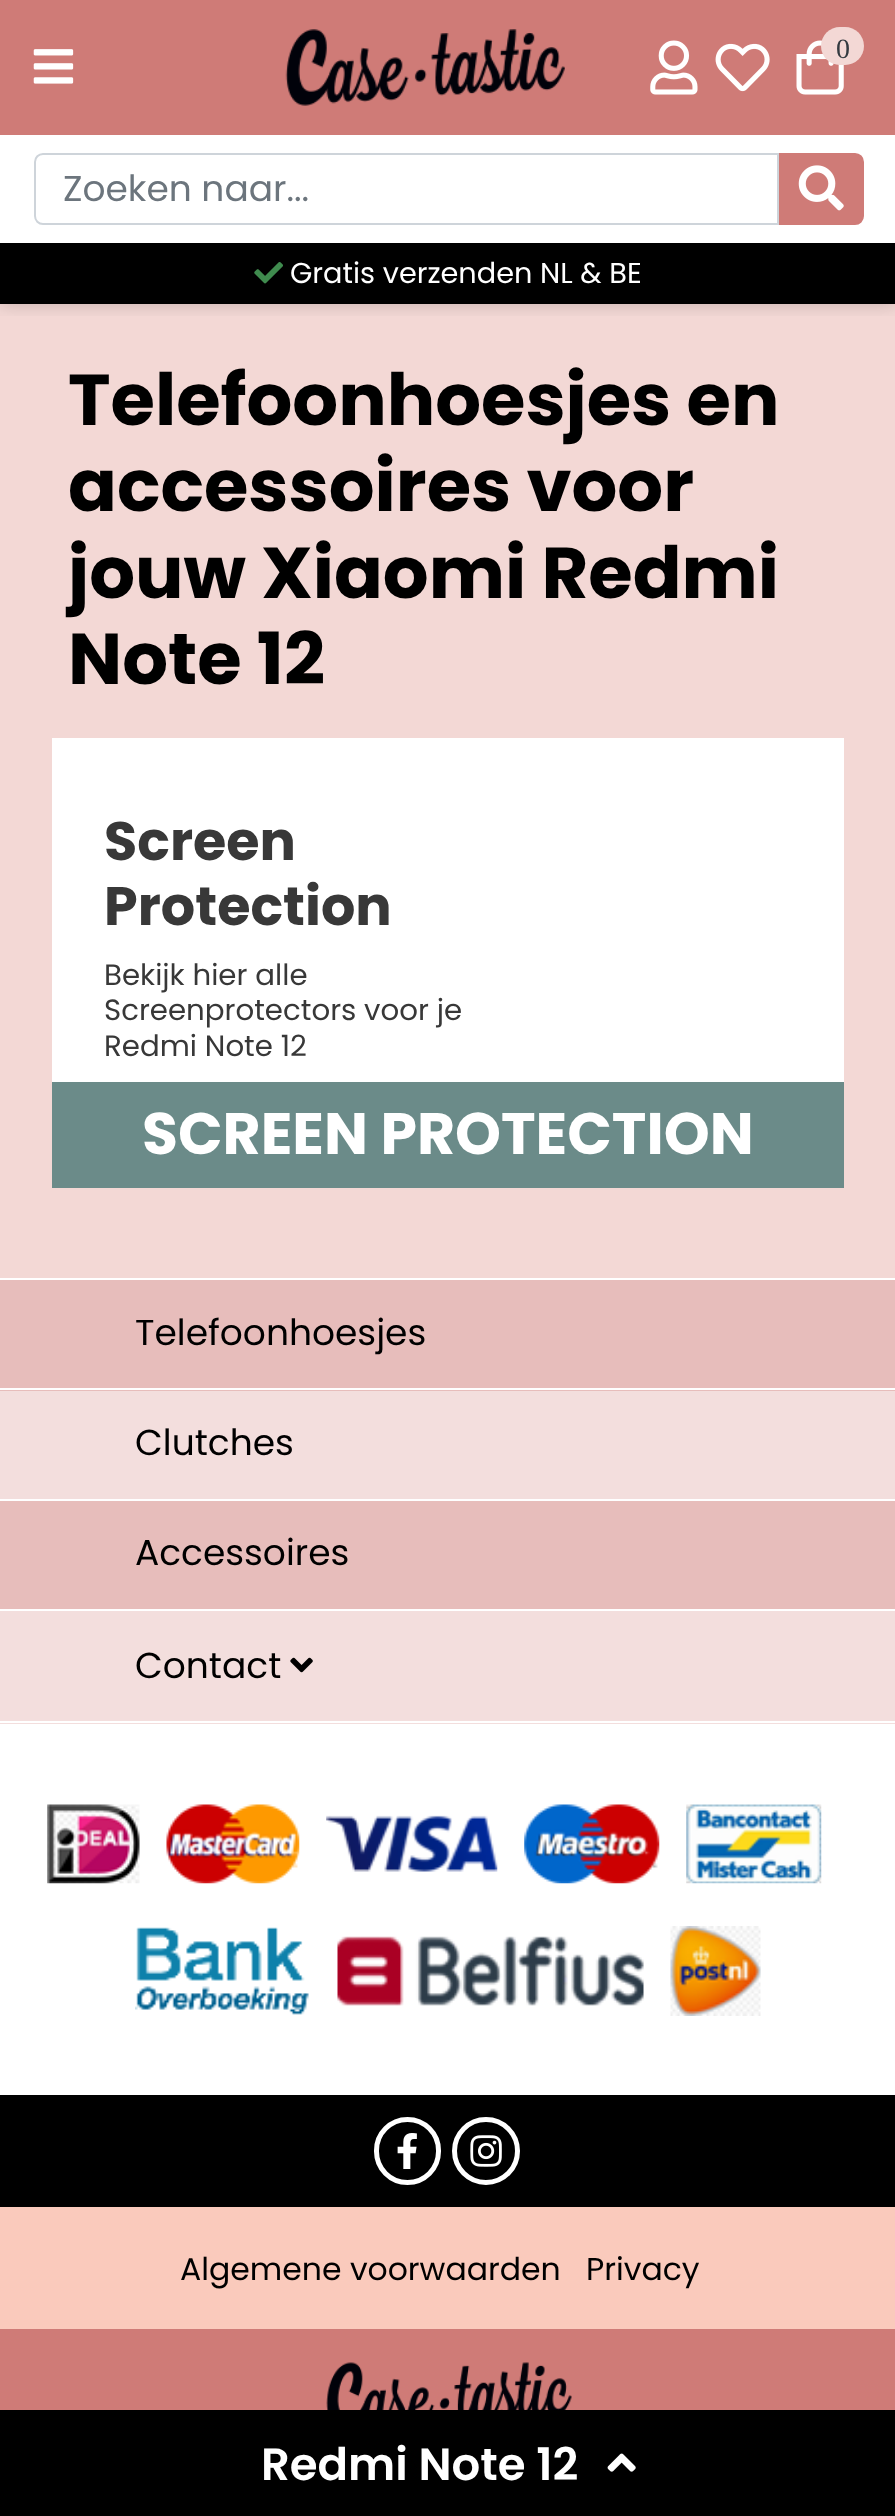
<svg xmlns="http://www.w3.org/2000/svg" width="895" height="2516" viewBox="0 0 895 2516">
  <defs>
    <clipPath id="clip1"><rect x="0" y="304" width="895" height="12"/></clipPath>
    <filter id="blur1" x="-50%" y="-200%" width="200%" height="500%"><feGaussianBlur stdDeviation="9"/></filter>
  </defs>
  <rect width="100%" height="100%" fill="#ffffff"/>
  <rect x="0" y="304" width="895" height="974" fill="#f3d8d5"/>
  <g clip-path="url(#clip1)">
    <rect x="0" y="0" width="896" height="304" fill="#000000" fill-opacity="0.2" filter="url(#blur1)"/>
  </g>
  <rect x="0" y="0" width="895" height="135" fill="#cf7b77"/>
  <image x="33" y="49" width="41" height="35" href="img1.png"/>
  <image x="285" y="29" width="280" height="77" href="img2.png"/>
  <image x="650" y="40" width="48" height="55" href="img3.png"/>
  <image x="715" y="43" width="55" height="49" href="img4.png"/>
  <image x="796" y="40" width="48" height="55" href="img5.png"/>
  <rect x="821" y="27" width="43" height="38" rx="19" fill="#f3d8d5"/>
  <text x="836" y="58" font-family="Liberation Serif" font-size="28" fill="#343a40">0</text>
  <path d="M43 154H778V224H43C38.5 224 35 220.5 35 216V162C35 157.5 38.5 154 43 154Z" fill="none" stroke="#ced4da" stroke-width="2"/>
  <text x="63" y="201" font-family="Poppins" font-size="36" fill="#6c757d">Zoeken naar...</text>
  <path d="M780 154H855C859.5 154 863 157.5 863 162V216C863 220.5 859.5 224 855 224H780Z" fill="#cf7b77" stroke="#cf7b77" stroke-width="2"/>
  <image x="798" y="165" width="46" height="46" href="img6.png"/>
  <rect x="0" y="243" width="895" height="61" fill="#000000"/>
  <image x="254" y="262" width="29" height="22" href="img7.png"/>
  <text x="290" y="283" font-family="Poppins" font-size="28.75" fill="#ffffff">Gratis verzenden NL &amp; BE</text>
  <text x="68" y="425" font-family="Poppins" font-size="72" font-weight="bold" fill="#000000">Telefoonhoesjes en</text>
  <text x="68" y="511" font-family="Poppins" font-size="72" font-weight="bold" fill="#000000">accessoires voor</text>
  <text x="68" y="598" font-family="Poppins" font-size="72" font-weight="bold" fill="#000000">jouw Xiaomi Redmi</text>
  <text x="68" y="684" font-family="Poppins" font-size="72" font-weight="bold" fill="#000000">Note 12</text>
  <rect x="52" y="738" width="792" height="344" fill="#ffffff"/>
  <text x="104" y="860" font-family="Poppins" font-size="54" font-weight="bold" fill="#383838">Screen</text>
  <text x="104" y="925" font-family="Poppins" font-size="54" font-weight="bold" fill="#383838">Protection</text>
  <text x="104" y="985" font-family="Poppins" font-size="29.25" fill="#383838">Bekijk hier alle</text>
  <text x="104" y="1020" font-family="Poppins" font-size="29.25" fill="#383838">Screenprotectors voor je</text>
  <text x="104" y="1056" font-family="Poppins" font-size="29.25" fill="#383838">Redmi Note 12</text>
  <rect x="52" y="1082" width="792" height="106" fill="#6b8b89"/>
  <text x="142" y="1154" font-family="Poppins" font-size="58.5" font-weight="bold" fill="#ffffff">SCREEN PROTECTION</text>
  <rect x="0" y="1280" width="895" height="111" fill="#e7bdbb"/>
  <rect x="0" y="1388" width="895" height="2" fill="#ffffff"/>
  <text x="135" y="1345" font-family="Poppins" font-size="36" fill="#000000">Telefoonhoesjes</text>
  <rect x="0" y="1391" width="895" height="108" fill="#f3dedd"/>
  <text x="135" y="1455" font-family="Poppins" font-size="36" fill="#000000">Clutches</text>
  <rect x="0" y="1501" width="895" height="108" fill="#e7bdbb"/>
  <text x="135" y="1565" font-family="Poppins" font-size="36" fill="#000000">Accessoires</text>
  <rect x="0" y="1611" width="895" height="113" fill="#f3dedd"/>
  <rect x="0" y="1721" width="895" height="2" fill="#ffffff"/>
  <text x="135" y="1678" font-family="Poppins" font-size="36" fill="#000000">Contact</text>
  <image x="290" y="1657" width="23" height="16" href="img8.png"/>
  <image x="47" y="1804" width="93" height="80" href="img9.png"/>
  <image x="166" y="1804" width="134" height="80" href="img10.png"/>
  <image x="326" y="1815" width="172" height="57" href="img11.png"/>
  <image x="524" y="1804" width="136" height="80" href="img12.png"/>
  <image x="686" y="1804" width="136" height="80" href="img13.png"/>
  <image x="135" y="1927" width="174" height="88" href="img14.png"/>
  <image x="337" y="1936" width="307" height="70" href="img15.png"/>
  <image x="670" y="1926" width="91" height="90" href="img16.png"/>
  <rect x="0" y="2095" width="895" height="112" fill="#000000"/>
  <rect x="376.5" y="2119.5" width="62" height="63" rx="31" fill="none" stroke="#ffffff" stroke-width="5"/>
  <image x="397" y="2133" width="20" height="36" href="img17.png"/>
  <circle cx="486" cy="2151" r="31.5" fill="none" stroke="#ffffff" stroke-width="5"/>
  <image x="470" y="2135" width="32" height="32" href="img18.png"/>
  <rect x="0" y="2207" width="895" height="122" fill="#facabc"/>
  <text x="180" y="2280" font-family="Poppins" font-size="31.5" fill="#000000">Algemene voorwaarden</text>
  <text x="586" y="2280" font-family="Poppins" font-size="31.5" fill="#000000">Privacy</text>
  <rect x="0" y="2329" width="895" height="81" fill="#cf7b77"/>
  <image x="326" y="2362" width="246" height="48" href="img19.png"/>
  <rect x="0" y="2410" width="895" height="106" fill="#000000"/>
  <text x="261" y="2480" font-family="Poppins" font-size="45" font-weight="600" fill="#ffffff">Redmi Note 12</text>
  <image x="607" y="2453" width="29" height="19" href="img20.png"/>
</svg>
